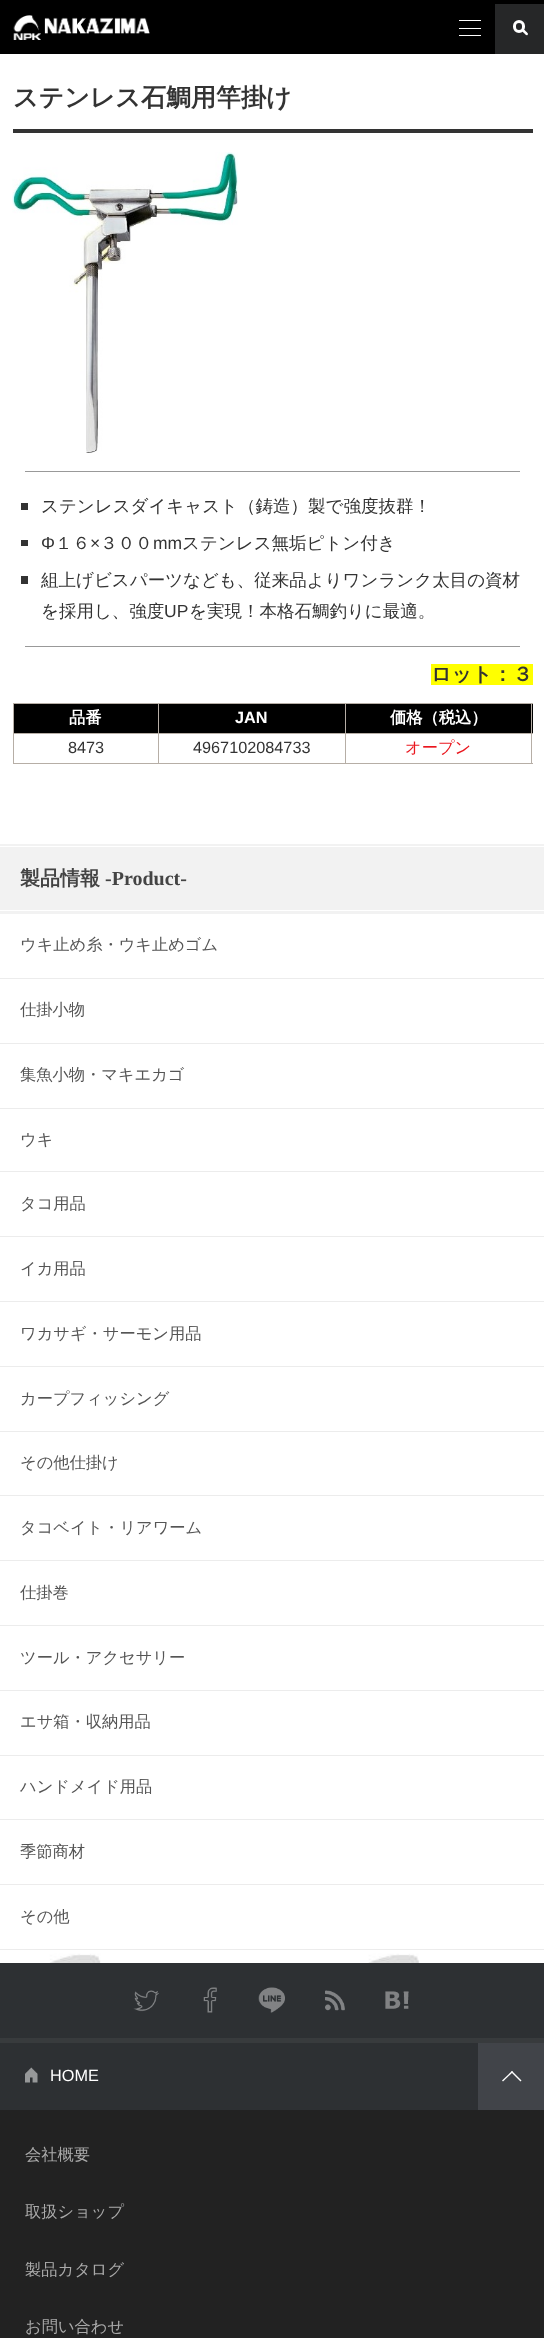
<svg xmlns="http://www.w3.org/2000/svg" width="544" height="2338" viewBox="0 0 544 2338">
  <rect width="100%" height="100%" fill="#ffffff"/>
  <image x="0" y="831" width="464" height="1132" href="img1.png"/>
  <rect x="0" y="0" width="544" height="54" fill="#000000"/>
  <image x="13" y="15" width="137" height="25" href="img2.png"/>
  <rect x="459" y="20" width="22" height="1" fill="#ffffff"/>
  <rect x="459" y="28" width="22" height="1" fill="#ffffff"/>
  <rect x="459" y="35" width="22" height="1" fill="#ffffff"/>
  <rect x="495" y="4" width="49" height="50" fill="#262728"/>
  <rect x="514.5" y="21.5" width="9" height="10" rx="4.5" fill="none" stroke="#ffffff" stroke-width="3"/>
  <path d="M522.5 29.5C523.5 28.5 525 30.5 526 31.5C526.5 32 529 33.5 527.5 35C526.5 36 525 34 524 33C523.5 32.5 521 31 522.5 29.5Z" fill="#ffffff"/>
  <rect x="13" y="129" width="520" height="4" fill="#333333"/>
  <text x="13" y="106" font-family="WenQuanYi Zen Hei" font-size="25" font-weight="bold" fill="#333333">ステンレス石鯛用竿掛け</text>
  <image x="12" y="152" width="226" height="301" href="img3.png"/>
  <rect x="25" y="471" width="495" height="1" fill="#999999"/>
  <rect x="21" y="503" width="7" height="7" fill="#333333"/>
  <text x="41" y="512" font-family="WenQuanYi Zen Hei" font-size="17.5" font-weight="500" fill="#333333">ステンレスダイキャスト（鋳造）製で強度抜群！</text>
  <rect x="21" y="540" width="7" height="6" fill="#333333"/>
  <text x="41" y="549" font-family="Liberation Sans" font-size="17.5" fill="#333333">Φ</text>
  <text x="55" y="549" font-family="WenQuanYi Zen Hei" font-size="17.5" font-weight="500" fill="#333333">１６</text>
  <text x="90" y="549" font-family="Liberation Sans" font-size="17.5" fill="#333333">×</text>
  <text x="100" y="549" font-family="WenQuanYi Zen Hei" font-size="17.5" font-weight="500" fill="#333333">３００</text>
  <text x="153" y="549" font-family="Liberation Sans" font-size="17.5" fill="#333333">mm</text>
  <text x="182" y="549" font-family="WenQuanYi Zen Hei" font-size="17.5" font-weight="500" fill="#333333">ステンレス無垢ピトン付き</text>
  <rect x="21" y="576" width="7" height="8" fill="#333333"/>
  <text x="41" y="586" font-family="WenQuanYi Zen Hei" font-size="17.5" font-weight="500" fill="#333333">組上げビスパーツなども、従来品よりワンランク太目の資材</text>
  <text x="41" y="617" font-family="WenQuanYi Zen Hei" font-size="17.5" font-weight="500" fill="#333333">を採用し、強度</text>
  <text x="164" y="617" font-family="Liberation Sans" font-size="17.5" fill="#333333">UP</text>
  <text x="189" y="617" font-family="WenQuanYi Zen Hei" font-size="17.5" font-weight="500" fill="#333333">を実現！本格石鯛釣りに最適。</text>
  <rect x="25" y="646" width="495" height="1" fill="#999999"/>
  <rect x="431" y="664" width="102" height="21" fill="#ffff00"/>
  <text x="431" y="681" font-family="WenQuanYi Zen Hei" font-size="20" font-weight="bold" fill="#333333">ロット：３</text>
  <rect x="13" y="703" width="520" height="1" fill="#b6aea6"/>
  <rect x="346" y="704" width="187" height="29" fill="#000000"/>
  <rect x="531" y="703" width="1" height="61" fill="#b6aea6"/>
  <rect x="13" y="763" width="520" height="1" fill="#b6aea6"/>
  <rect x="13" y="703" width="1" height="61" fill="#b6aea6"/>
  <rect x="14" y="704" width="144" height="29" fill="#000000"/>
  <text x="69" y="723" font-family="WenQuanYi Zen Hei" font-size="16.25" font-weight="bold" fill="#ffffff">品番</text>
  <rect x="159" y="704" width="186" height="29" fill="#000000"/>
  <rect x="345" y="733" width="188" height="1" fill="#b6aea6"/>
  <rect x="345" y="733" width="1" height="31" fill="#b6aea6"/>
  <rect x="158" y="733" width="188" height="1" fill="#b6aea6"/>
  <rect x="158" y="733" width="1" height="31" fill="#b6aea6"/>
  <rect x="13" y="733" width="146" height="1" fill="#b6aea6"/>
  <rect x="158" y="703" width="1" height="31" fill="#b6aea6"/>
  <text x="235" y="723" font-family="Liberation Sans" font-size="16.25" font-weight="bold" fill="#ffffff">JAN</text>
  <rect x="345" y="703" width="1" height="31" fill="#b6aea6"/>
  <text x="390" y="723" font-family="WenQuanYi Zen Hei" font-size="16.25" font-weight="bold" fill="#ffffff">価格（税込）</text>
  <text x="68" y="753" font-family="Liberation Sans" font-size="16.25" fill="#333333">8473</text>
  <text x="193" y="753" font-family="Liberation Sans" font-size="16.25" fill="#333333">4967102084733</text>
  <text x="405" y="753" font-family="WenQuanYi Zen Hei" font-size="16.25" font-weight="500" fill="#ea161e">オープン</text>
  <rect x="0" y="844" width="544" height="70" fill="#f2f2f2"/>
  <rect x="0" y="846" width="544" height="1" fill="#ffffff"/>
  <rect x="0" y="910" width="544" height="1" fill="#ffffff"/>
  <text x="20" y="885" font-family="WenQuanYi Zen Hei" font-size="20" font-weight="bold" fill="#444444">製品情報</text>
  <text x="105" y="885" font-family="Liberation Serif" font-size="20" font-weight="bold" fill="#444444">-Product-</text>
  <rect x="0" y="914" width="464" height="649" fill="#ffffff"/>
  <rect x="0" y="978" width="544" height="1" fill="#ececec"/>
  <text x="20" y="950" font-family="WenQuanYi Zen Hei" font-size="16.25" font-weight="500" fill="#555555">ウキ止め糸・ウキ止めゴム</text>
  <rect x="0" y="1043" width="544" height="1" fill="#ececec"/>
  <text x="20" y="1015" font-family="WenQuanYi Zen Hei" font-size="16.25" font-weight="500" fill="#555555">仕掛小物</text>
  <rect x="0" y="1108" width="544" height="1" fill="#ececec"/>
  <text x="20" y="1080" font-family="WenQuanYi Zen Hei" font-size="16.25" font-weight="500" fill="#555555">集魚小物・マキエカゴ</text>
  <rect x="0" y="1171" width="544" height="1" fill="#ececec"/>
  <text x="20" y="1145" font-family="WenQuanYi Zen Hei" font-size="16.25" font-weight="500" fill="#555555">ウキ</text>
  <rect x="0" y="1236" width="544" height="1" fill="#ececec"/>
  <text x="20" y="1209" font-family="WenQuanYi Zen Hei" font-size="16.25" font-weight="500" fill="#555555">タコ用品</text>
  <rect x="0" y="1301" width="544" height="1" fill="#ececec"/>
  <text x="20" y="1274" font-family="WenQuanYi Zen Hei" font-size="16.25" font-weight="500" fill="#555555">イカ用品</text>
  <rect x="0" y="1366" width="544" height="1" fill="#ececec"/>
  <text x="20" y="1339" font-family="WenQuanYi Zen Hei" font-size="16.25" font-weight="500" fill="#555555">ワカサギ・サーモン用品</text>
  <rect x="0" y="1431" width="544" height="1" fill="#ececec"/>
  <text x="20" y="1404" font-family="WenQuanYi Zen Hei" font-size="16.25" font-weight="500" fill="#555555">カープフィッシング</text>
  <rect x="0" y="1495" width="544" height="1" fill="#ececec"/>
  <text x="20" y="1468" font-family="WenQuanYi Zen Hei" font-size="16.25" font-weight="500" fill="#555555">その他仕掛け</text>
  <rect x="0" y="1560" width="544" height="1" fill="#ececec"/>
  <text x="20" y="1533" font-family="WenQuanYi Zen Hei" font-size="16.25" font-weight="500" fill="#555555">タコベイト・リアワーム</text>
  <rect x="0" y="1625" width="544" height="1" fill="#ececec"/>
  <text x="20" y="1598" font-family="WenQuanYi Zen Hei" font-size="16.25" font-weight="500" fill="#555555">仕掛巻</text>
  <rect x="0" y="1690" width="544" height="1" fill="#ececec"/>
  <text x="20" y="1663" font-family="WenQuanYi Zen Hei" font-size="16.25" font-weight="500" fill="#555555">ツール・アクセサリー</text>
  <rect x="0" y="1755" width="544" height="1" fill="#ececec"/>
  <text x="20" y="1727" font-family="WenQuanYi Zen Hei" font-size="16.25" font-weight="500" fill="#555555">エサ箱・収納用品</text>
  <rect x="0" y="1819" width="544" height="1" fill="#ececec"/>
  <text x="20" y="1792" font-family="WenQuanYi Zen Hei" font-size="16.25" font-weight="500" fill="#555555">ハンドメイド用品</text>
  <rect x="0" y="1884" width="544" height="1" fill="#ececec"/>
  <text x="20" y="1857" font-family="WenQuanYi Zen Hei" font-size="16.25" font-weight="500" fill="#555555">季節商材</text>
  <rect x="0" y="1949" width="544" height="1" fill="#ececec"/>
  <text x="20" y="1922" font-family="WenQuanYi Zen Hei" font-size="16.25" font-weight="500" fill="#555555">その他</text>
  <rect x="0" y="2110" width="544" height="228" fill="#222222"/>
  <rect x="0" y="1963" width="544" height="147" fill="#2d3033"/>
  <rect x="0" y="2038" width="544" height="5" fill="#383b3d"/>
  <image x="133" y="1990" width="26" height="22" href="img4.png"/>
  <image x="203" y="1987" width="14" height="26" href="img5.png"/>
  <image x="258" y="1987" width="27" height="26" href="img6.png"/>
  <image x="325" y="1990" width="20" height="21" href="img7.png"/>
  <image x="385" y="1991" width="24" height="18" href="img8.png"/>
  <image x="25" y="2067" width="13" height="16" href="img9.png"/>
  <text x="50" y="2081" font-family="Liberation Sans" font-size="16.25" fill="#ffffff">HOME</text>
  <rect x="478" y="2043" width="66" height="67" fill="#414449"/>
  <path d="M512 2071L521.5 2080.5L520.5 2081.5L511 2072Z" fill="#ffffff"/>
  <path d="M512 2071L513 2072L503 2081.5L502 2080.5Z" fill="#ffffff"/>
  <text x="25" y="2160" font-family="WenQuanYi Zen Hei" font-size="16.25" font-weight="500" fill="#aaaaaa">会社概要</text>
  <text x="25" y="2217" font-family="WenQuanYi Zen Hei" font-size="16.25" font-weight="500" fill="#aaaaaa">取扱ショップ</text>
  <text x="25" y="2275" font-family="WenQuanYi Zen Hei" font-size="16.25" font-weight="500" fill="#aaaaaa">製品カタログ</text>
  <text x="25" y="2332" font-family="WenQuanYi Zen Hei" font-size="16.25" font-weight="500" fill="#aaaaaa">お問い合わせ</text>
</svg>
